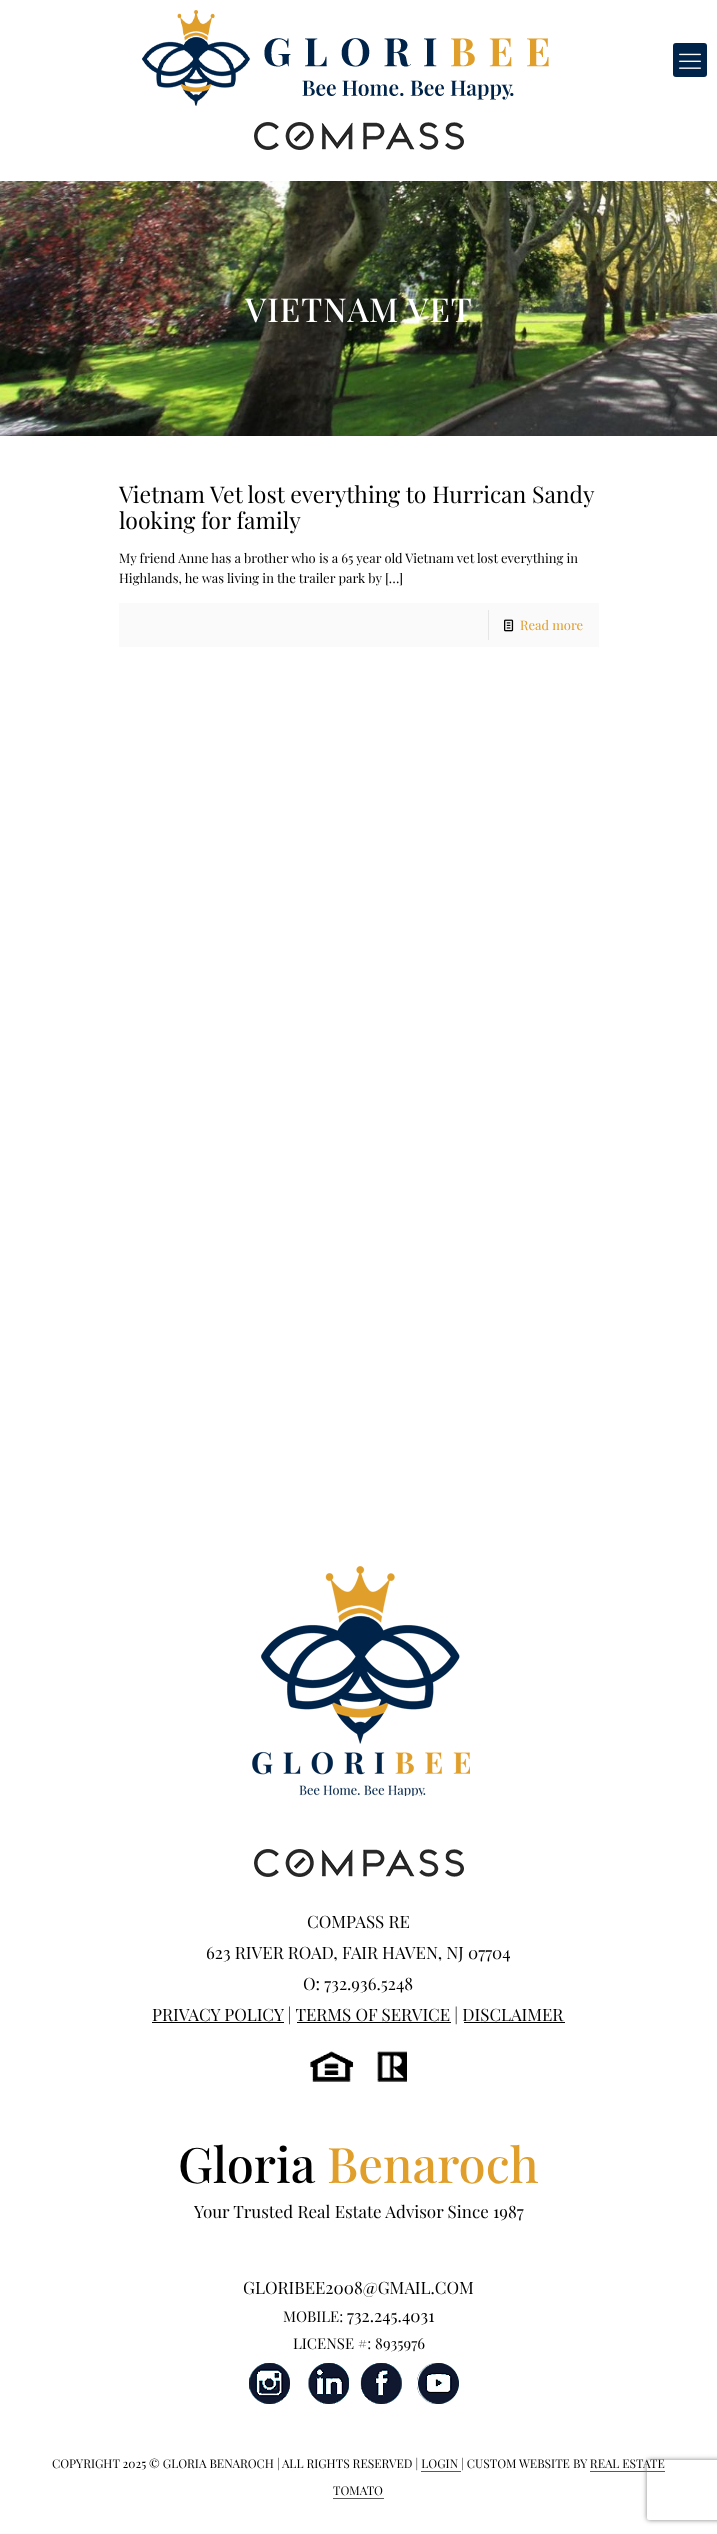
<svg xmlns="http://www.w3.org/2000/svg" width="717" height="2534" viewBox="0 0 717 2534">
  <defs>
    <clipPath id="clip1"><path d="M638 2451H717V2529H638ZM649 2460H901C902 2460 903 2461 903 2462V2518C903 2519 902 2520 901 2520H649C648 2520 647 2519 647 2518V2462C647 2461 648 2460 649 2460Z" clip-rule="evenodd"/></clipPath>
    <filter id="blur1" x="-50%" y="-200%" width="200%" height="500%"><feGaussianBlur stdDeviation="2.5"/></filter>
  </defs>
  <rect width="100%" height="100%" fill="#ffffff"/>
  <image x="142" y="10" width="407" height="96" href="img1.png"/>
  <rect x="673" y="43" width="34" height="34" rx="3" fill="#002349"/>
  <image x="679" y="53" width="22" height="16" href="img2.png"/>
  <image x="254" y="122" width="210" height="28" href="img3.png"/>
  <image x="0" y="181" width="717" height="255" href="img4.png"/>
  <text x="245" y="322" font-family="Playfair Display" font-size="33" font-weight="500" letter-spacing="1" fill="#ffffff">VIETNAM VET</text>
  <text x="119" y="503" font-family="Playfair Display" font-size="23" fill="#000000">Vietnam Vet lost everything to Hurrican Sandy</text>
  <text x="119" y="529" font-family="Playfair Display" font-size="23" fill="#000000">looking for family</text>
  <text x="119" y="563" font-family="Playfair Display" font-size="13" fill="#000000">My friend Anne has a brother who is a 65 year old Vietnam vet lost everything in</text>
  <text x="119" y="583" font-family="Playfair Display" font-size="13" fill="#000000">Highlands, he was living in the trailer park by […]</text>
  <rect x="119" y="603" width="480" height="44" fill="#fafafa"/>
  <rect x="488" y="610" width="1" height="30" fill="#e6e6e6"/>
  <image x="504" y="619" width="10" height="13" href="img5.png"/>
  <text x="520" y="630" font-family="Playfair Display" font-size="13" fill="#e09e2b">Read more</text>
  <image x="252" y="1566" width="218" height="230" href="img6.png"/>
  <image x="254" y="1849" width="210" height="28" href="img3.png"/>
  <text x="307" y="1928" font-family="Playfair Display" font-size="17" fill="#000000">COMPASS RE</text>
  <text x="206" y="1959" font-family="Playfair Display" font-size="17" fill="#000000">623 RIVER ROAD, FAIR HAVEN, NJ 07704</text>
  <text x="303" y="1990" font-family="Playfair Display" font-size="17" fill="#000000">O: 732.936.5248</text>
  <rect x="152" y="2022" width="132" height="1" fill="#000000"/>
  <text x="152" y="2021" font-family="Playfair Display" font-size="17" fill="#000000">PRIVACY POLICY | TERMS OF SERVICE | DISCLAIMER</text>
  <rect x="297" y="2022" width="154" height="1" fill="#000000"/>
  <rect x="464" y="2022" width="101" height="1" fill="#000000"/>
  <image x="310" y="2051" width="97" height="31" href="img7.png"/>
  <text x="178" y="2183" font-family="Playfair Display" font-size="49" font-weight="500" fill="#000000">Gloria</text>
  <text x="327" y="2183" font-family="Playfair Display" font-size="49" font-weight="500" fill="#e09e2b">Benaroch</text>
  <text x="194" y="2218" font-family="Playfair Display" font-size="17" fill="#000000">Your Trusted Real Estate Advisor Since 1987</text>
  <text x="243" y="2294" font-family="Playfair Display" font-size="17" fill="#000000">GLORIBEE2008@GMAIL.COM</text>
  <text x="283" y="2322" font-family="Playfair Display" font-size="15" fill="#000000">MOBILE:</text>
  <text x="347" y="2322" font-family="Playfair Display" font-size="17" fill="#000000">732.245.4031</text>
  <text x="293" y="2349" font-family="Playfair Display" font-size="15" fill="#000000">LICENSE #: 8935976</text>
  <image x="249" y="2363" width="41" height="41" href="img8.png"/>
  <image x="308" y="2363" width="41" height="41" href="img9.png"/>
  <image x="360" y="2363" width="42" height="41" href="img10.png"/>
  <image x="417" y="2363" width="42" height="41" href="img11.png"/>
  <text x="52" y="2468" font-family="Playfair Display" font-size="12" fill="#000000">COPYRIGHT 2025 © GLORIA BENAROCH |</text>
  <text x="282" y="2468" font-family="Playfair Display" font-size="12" fill="#000000">ALL RIGHTS RESERVED | LOGIN | CUSTOM WEBSITE BY REAL ESTATE</text>
  <rect x="421" y="2471" width="40" height="1" fill="#595959"/>
  <text x="333" y="2495" font-family="Playfair Display" font-size="12" fill="#000000">TOMATO</text>
  <rect x="590" y="2471" width="75" height="1" fill="#595959"/>
  <rect x="333" y="2498" width="51" height="1" fill="#595959"/>
  <g clip-path="url(#clip1)">
    <rect x="647" y="2460" width="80" height="60" rx="2" fill="#808080" filter="url(#blur1)"/>
  </g>
</svg>
